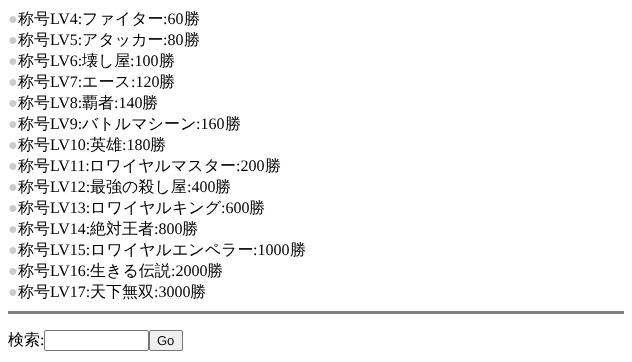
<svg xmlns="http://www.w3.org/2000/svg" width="632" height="362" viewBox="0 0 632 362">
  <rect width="100%" height="100%" fill="#ffffff"/>
  <text x="8" y="24" font-family="Liberation Serif" font-size="16" fill="#cccccc">●</text>
  <text x="18" y="24" font-family="WenQuanYi Zen Hei" font-size="16" font-weight="500" fill="#000000">称号</text>
  <text x="50" y="24" font-family="Liberation Serif" font-size="16" fill="#000000">LV4:</text>
  <text x="82" y="24" font-family="WenQuanYi Zen Hei" font-size="16" font-weight="500" fill="#000000">ファイター</text>
  <text x="163" y="24" font-family="Liberation Serif" font-size="16" fill="#000000">:60</text>
  <text x="184" y="24" font-family="WenQuanYi Zen Hei" font-size="16" font-weight="500" fill="#000000">勝</text>
  <text x="8" y="45" font-family="Liberation Serif" font-size="16" fill="#cccccc">●</text>
  <text x="18" y="45" font-family="WenQuanYi Zen Hei" font-size="16" font-weight="500" fill="#000000">称号</text>
  <text x="50" y="45" font-family="Liberation Serif" font-size="16" fill="#000000">LV5:</text>
  <text x="82" y="45" font-family="WenQuanYi Zen Hei" font-size="16" font-weight="500" fill="#000000">アタッカー</text>
  <text x="163" y="45" font-family="Liberation Serif" font-size="16" fill="#000000">:80</text>
  <text x="184" y="45" font-family="WenQuanYi Zen Hei" font-size="16" font-weight="500" fill="#000000">勝</text>
  <text x="8" y="66" font-family="Liberation Serif" font-size="16" fill="#cccccc">●</text>
  <text x="18" y="66" font-family="WenQuanYi Zen Hei" font-size="16" font-weight="500" fill="#000000">称号</text>
  <text x="50" y="66" font-family="Liberation Serif" font-size="16" fill="#000000">LV6:</text>
  <text x="82" y="66" font-family="WenQuanYi Zen Hei" font-size="16" font-weight="500" fill="#000000">壊し屋</text>
  <text x="130" y="66" font-family="Liberation Serif" font-size="16" fill="#000000">:100</text>
  <text x="159" y="66" font-family="WenQuanYi Zen Hei" font-size="16" font-weight="500" fill="#000000">勝</text>
  <text x="8" y="87" font-family="Liberation Serif" font-size="16" fill="#cccccc">●</text>
  <text x="18" y="87" font-family="WenQuanYi Zen Hei" font-size="16" font-weight="500" fill="#000000">称号</text>
  <text x="50" y="87" font-family="Liberation Serif" font-size="16" fill="#000000">LV7:</text>
  <text x="82" y="87" font-family="WenQuanYi Zen Hei" font-size="16" font-weight="500" fill="#000000">エース</text>
  <text x="131" y="87" font-family="Liberation Serif" font-size="16" fill="#000000">:120</text>
  <text x="159" y="87" font-family="WenQuanYi Zen Hei" font-size="16" font-weight="500" fill="#000000">勝</text>
  <text x="8" y="108" font-family="Liberation Serif" font-size="16" fill="#cccccc">●</text>
  <text x="18" y="108" font-family="WenQuanYi Zen Hei" font-size="16" font-weight="500" fill="#000000">称号</text>
  <text x="50" y="108" font-family="Liberation Serif" font-size="16" fill="#000000">LV8:</text>
  <text x="82" y="108" font-family="WenQuanYi Zen Hei" font-size="16" font-weight="500" fill="#000000">覇者</text>
  <text x="114" y="108" font-family="Liberation Serif" font-size="16" fill="#000000">:140</text>
  <text x="142" y="108" font-family="WenQuanYi Zen Hei" font-size="16" font-weight="500" fill="#000000">勝</text>
  <text x="8" y="129" font-family="Liberation Serif" font-size="16" fill="#cccccc">●</text>
  <text x="18" y="129" font-family="WenQuanYi Zen Hei" font-size="16" font-weight="500" fill="#000000">称号</text>
  <text x="50" y="129" font-family="Liberation Serif" font-size="16" fill="#000000">LV9:</text>
  <text x="82" y="129" font-family="WenQuanYi Zen Hei" font-size="16" font-weight="500" fill="#000000">バトルマシーン</text>
  <text x="196" y="129" font-family="Liberation Serif" font-size="16" fill="#000000">:160</text>
  <text x="225" y="129" font-family="WenQuanYi Zen Hei" font-size="16" font-weight="500" fill="#000000">勝</text>
  <text x="8" y="150" font-family="Liberation Serif" font-size="16" fill="#cccccc">●</text>
  <text x="18" y="150" font-family="WenQuanYi Zen Hei" font-size="16" font-weight="500" fill="#000000">称号</text>
  <text x="50" y="150" font-family="Liberation Serif" font-size="16" fill="#000000">LV10:</text>
  <text x="90" y="150" font-family="WenQuanYi Zen Hei" font-size="16" font-weight="500" fill="#000000">英雄</text>
  <text x="122" y="150" font-family="Liberation Serif" font-size="16" fill="#000000">:180</text>
  <text x="150" y="150" font-family="WenQuanYi Zen Hei" font-size="16" font-weight="500" fill="#000000">勝</text>
  <text x="8" y="171" font-family="Liberation Serif" font-size="16" fill="#cccccc">●</text>
  <text x="18" y="171" font-family="WenQuanYi Zen Hei" font-size="16" font-weight="500" fill="#000000">称号</text>
  <text x="50" y="171" font-family="Liberation Serif" font-size="16" fill="#000000">LV11:</text>
  <text x="89" y="171" font-family="WenQuanYi Zen Hei" font-size="16" font-weight="500" fill="#000000">ロワイヤルマスター</text>
  <text x="236" y="171" font-family="Liberation Serif" font-size="16" fill="#000000">:200</text>
  <text x="265" y="171" font-family="WenQuanYi Zen Hei" font-size="16" font-weight="500" fill="#000000">勝</text>
  <text x="8" y="192" font-family="Liberation Serif" font-size="16" fill="#cccccc">●</text>
  <text x="18" y="192" font-family="WenQuanYi Zen Hei" font-size="16" font-weight="500" fill="#000000">称号</text>
  <text x="50" y="192" font-family="Liberation Serif" font-size="16" fill="#000000">LV12:</text>
  <text x="90" y="192" font-family="WenQuanYi Zen Hei" font-size="16" font-weight="500" fill="#000000">最強の殺し屋</text>
  <text x="187" y="192" font-family="Liberation Serif" font-size="16" fill="#000000">:400</text>
  <text x="215" y="192" font-family="WenQuanYi Zen Hei" font-size="16" font-weight="500" fill="#000000">勝</text>
  <text x="8" y="213" font-family="Liberation Serif" font-size="16" fill="#cccccc">●</text>
  <text x="18" y="213" font-family="WenQuanYi Zen Hei" font-size="16" font-weight="500" fill="#000000">称号</text>
  <text x="50" y="213" font-family="Liberation Serif" font-size="16" fill="#000000">LV13:</text>
  <text x="90" y="213" font-family="WenQuanYi Zen Hei" font-size="16" font-weight="500" fill="#000000">ロワイヤルキング</text>
  <text x="221" y="213" font-family="Liberation Serif" font-size="16" fill="#000000">:600</text>
  <text x="249" y="213" font-family="WenQuanYi Zen Hei" font-size="16" font-weight="500" fill="#000000">勝</text>
  <text x="8" y="234" font-family="Liberation Serif" font-size="16" fill="#cccccc">●</text>
  <text x="18" y="234" font-family="WenQuanYi Zen Hei" font-size="16" font-weight="500" fill="#000000">称号</text>
  <text x="50" y="234" font-family="Liberation Serif" font-size="16" fill="#000000">LV14:</text>
  <text x="90" y="234" font-family="WenQuanYi Zen Hei" font-size="16" font-weight="500" fill="#000000">絶対王者</text>
  <text x="154" y="234" font-family="Liberation Serif" font-size="16" fill="#000000">:800</text>
  <text x="182" y="234" font-family="WenQuanYi Zen Hei" font-size="16" font-weight="500" fill="#000000">勝</text>
  <text x="8" y="255" font-family="Liberation Serif" font-size="16" fill="#cccccc">●</text>
  <text x="18" y="255" font-family="WenQuanYi Zen Hei" font-size="16" font-weight="500" fill="#000000">称号</text>
  <text x="50" y="255" font-family="Liberation Serif" font-size="16" fill="#000000">LV15:</text>
  <text x="90" y="255" font-family="WenQuanYi Zen Hei" font-size="16" font-weight="500" fill="#000000">ロワイヤルエンペラー</text>
  <text x="253" y="255" font-family="Liberation Serif" font-size="16" fill="#000000">:1000</text>
  <text x="290" y="255" font-family="WenQuanYi Zen Hei" font-size="16" font-weight="500" fill="#000000">勝</text>
  <text x="8" y="276" font-family="Liberation Serif" font-size="16" fill="#cccccc">●</text>
  <text x="18" y="276" font-family="WenQuanYi Zen Hei" font-size="16" font-weight="500" fill="#000000">称号</text>
  <text x="50" y="276" font-family="Liberation Serif" font-size="16" fill="#000000">LV16:</text>
  <text x="90" y="276" font-family="WenQuanYi Zen Hei" font-size="16" font-weight="500" fill="#000000">生きる伝説</text>
  <text x="171" y="276" font-family="Liberation Serif" font-size="16" fill="#000000">:2000</text>
  <text x="207" y="276" font-family="WenQuanYi Zen Hei" font-size="16" font-weight="500" fill="#000000">勝</text>
  <text x="8" y="297" font-family="Liberation Serif" font-size="16" fill="#cccccc">●</text>
  <text x="18" y="297" font-family="WenQuanYi Zen Hei" font-size="16" font-weight="500" fill="#000000">称号</text>
  <text x="50" y="297" font-family="Liberation Serif" font-size="16" fill="#000000">LV17:</text>
  <text x="90" y="297" font-family="WenQuanYi Zen Hei" font-size="16" font-weight="500" fill="#000000">天下無双</text>
  <text x="154" y="297" font-family="Liberation Serif" font-size="16" fill="#000000">:3000</text>
  <text x="190" y="297" font-family="WenQuanYi Zen Hei" font-size="16" font-weight="500" fill="#000000">勝</text>
  <rect x="8" y="311" width="616" height="3" fill="#808080"/>
  <text x="8" y="345" font-family="WenQuanYi Zen Hei" font-size="16" font-weight="500" fill="#000000">検索</text>
  <text x="40" y="345" font-family="Liberation Serif" font-size="16" fill="#000000">:</text>
  <rect x="44.5" y="330.5" width="104" height="20" rx="1.5" fill="none" stroke="#767676"/>
  <rect x="149.5" y="330.5" width="33" height="20" rx="1.5" fill="#efefef" stroke="#767676"/>
  <text x="157" y="345" font-family="Liberation Sans" font-size="13" fill="#000000">Go</text>
</svg>
